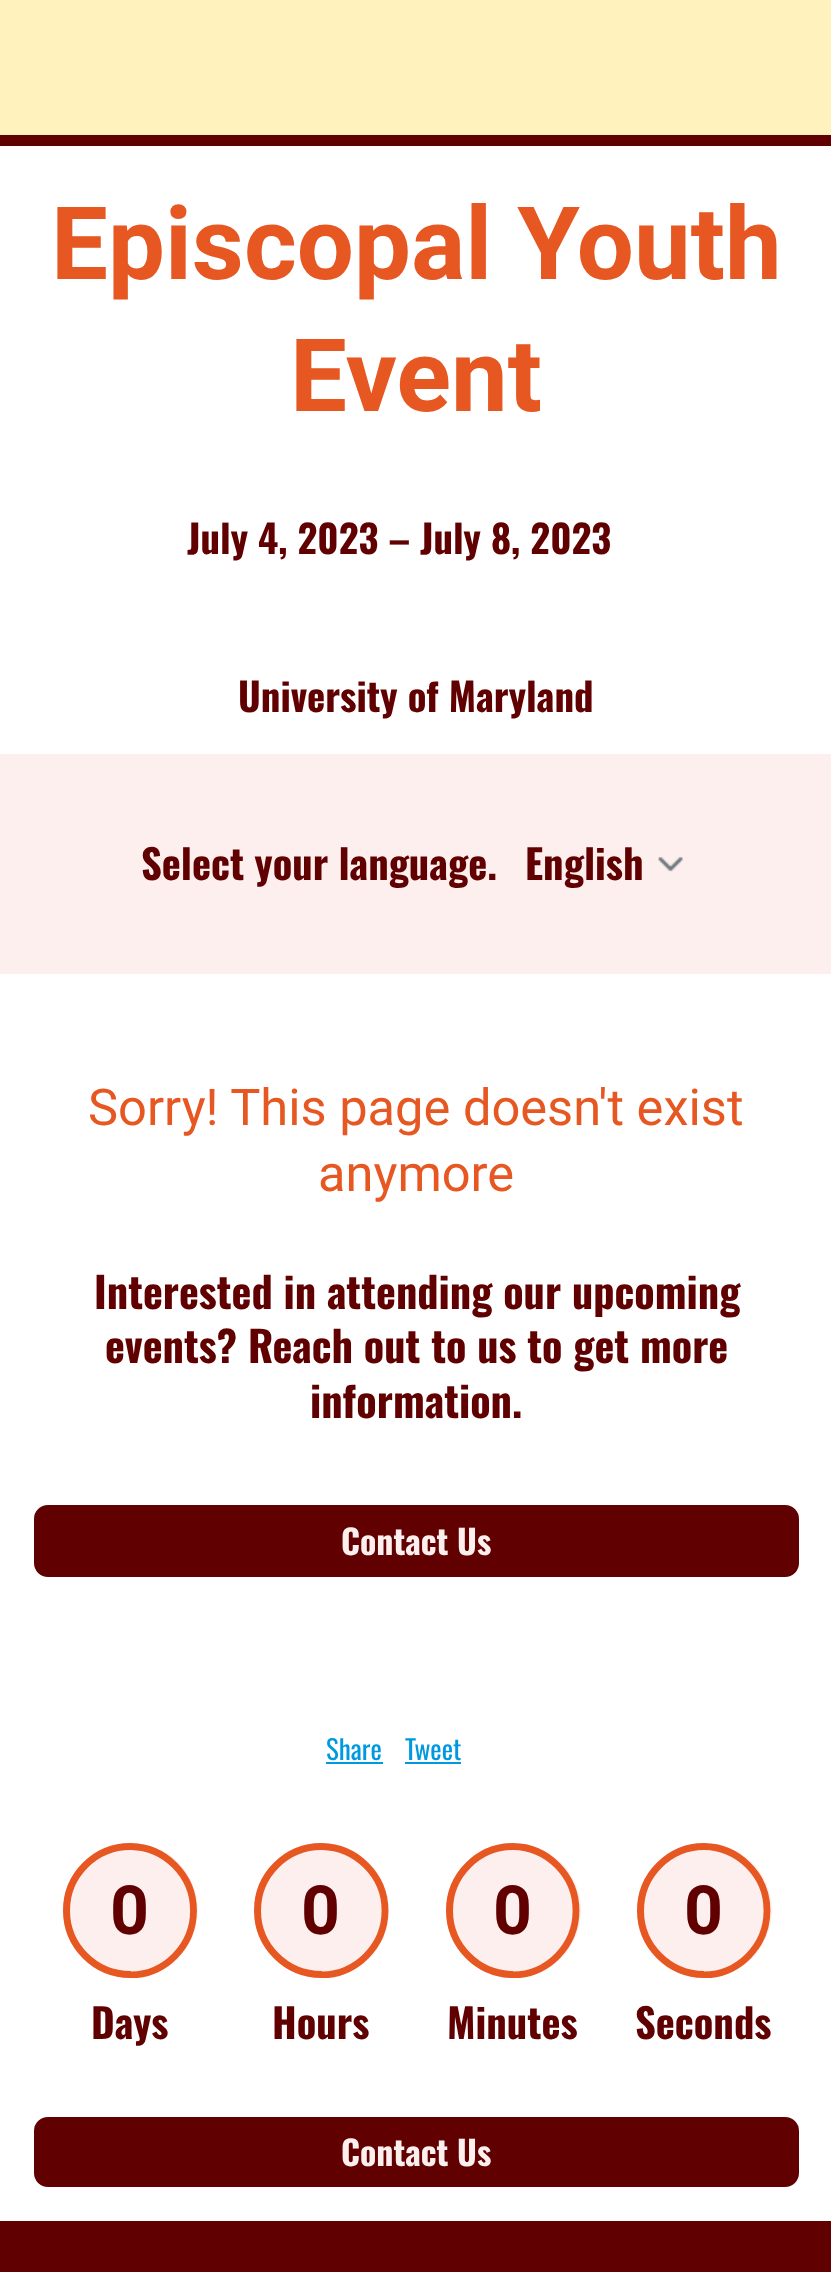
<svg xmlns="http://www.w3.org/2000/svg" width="831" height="2272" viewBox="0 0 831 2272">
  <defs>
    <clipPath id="clip1"><rect x="63" y="1843" width="68" height="135"/></clipPath>
    <clipPath id="clip2"><rect x="131" y="1843" width="67" height="135"/></clipPath>
    <clipPath id="clip3"><rect x="254" y="1843" width="68" height="135"/></clipPath>
    <clipPath id="clip4"><rect x="322" y="1843" width="67" height="135"/></clipPath>
    <clipPath id="clip5"><rect x="446" y="1843" width="67" height="135"/></clipPath>
    <clipPath id="clip6"><rect x="513" y="1843" width="68" height="135"/></clipPath>
    <clipPath id="clip7"><rect x="637" y="1843" width="67" height="135"/></clipPath>
    <clipPath id="clip8"><rect x="704" y="1843" width="68" height="135"/></clipPath>
  </defs>
  <rect width="100%" height="100%" fill="#600000"/>
  <rect x="0" y="0" width="831" height="135" fill="#fff2bd"/>
  <rect x="0" y="146" width="831" height="608" fill="#ffffff"/>
  <text x="51" y="279" font-family="Roboto" font-size="101.25" font-weight="bold" fill="#e65722">Episcopal Youth</text>
  <text x="290" y="411" font-family="Roboto" font-size="101.25" font-weight="bold" fill="#e65722">Event</text>
  <text x="187" y="554" font-family="Oswald" font-size="38.75" font-weight="bold" fill="#600000">July 4, 2023 – July 8, 2023</text>
  <text x="238" y="712" font-family="Oswald" font-size="38.75" font-weight="bold" fill="#600000">University of Maryland</text>
  <rect x="0" y="754" width="831" height="220" fill="#fcefed"/>
  <text x="141" y="880" font-family="Oswald" font-size="40.5" font-weight="bold" fill="#600000">Select your language.</text>
  <image x="658" y="857" width="25" height="15" href="img1.png"/>
  <text x="525" y="880" font-family="Oswald" font-size="40.5" font-weight="bold" fill="#600000">English</text>
  <rect x="0" y="974" width="831" height="1247" fill="#ffffff"/>
  <text x="88" y="1125" font-family="Roboto" font-size="50.6" fill="#e65722">Sorry! This page doesn't exist</text>
  <text x="318" y="1191" font-family="Roboto" font-size="50.6" fill="#e65722">anymore</text>
  <text x="94" y="1309" font-family="Oswald" font-size="42.25" font-weight="bold" fill="#600000">Interested in attending our upcoming</text>
  <text x="105" y="1363" font-family="Oswald" font-size="42.25" font-weight="bold" fill="#600000">events? Reach out to us to get more</text>
  <text x="310" y="1418" font-family="Oswald" font-size="42.25" font-weight="bold" fill="#600000">information.</text>
  <rect x="35" y="1506" width="763" height="70" rx="13" fill="#600000" stroke="#600000" stroke-width="2"/>
  <text x="341" y="1555" font-family="Oswald" font-size="33.75" font-weight="bold" fill="#fcefed">Contact Us</text>
  <text x="326" y="1760" font-family="Oswald" font-size="27" fill="#0099e0">Share</text>
  <rect x="326" y="1762" width="57" height="2" fill="#0099e0"/>
  <text x="405" y="1760" font-family="Oswald" font-size="27" fill="#0099e0">Tweet</text>
  <rect x="405" y="1762" width="56" height="2" fill="#0099e0"/>
  <circle cx="130.5" cy="1910.5" r="67.5" fill="#fcefed"/>
  <g clip-path="url(#clip1)">
    <circle cx="130.5" cy="1910.5" r="64" fill="none" stroke="#e65722" stroke-width="7"/>
  </g>
  <g clip-path="url(#clip2)">
    <path d="M129.5 1975C94 1975 65 1946 65 1910.5C65 1875.5 94 1846.5 129.5 1846.5C165 1846.5 193.5 1875.5 193.5 1910.5C193.5 1946 165 1975 129.5 1975Z" fill="none" stroke="#e65722" stroke-width="6.8"/>
  </g>
  <text x="110" y="1934" font-family="Roboto" font-size="68" font-weight="bold" fill="#600000">0</text>
  <text x="91" y="2039" font-family="Oswald" font-size="40.5" font-weight="bold" fill="#600000">Days</text>
  <circle cx="321.5" cy="1910.5" r="67.5" fill="#fcefed"/>
  <g clip-path="url(#clip3)">
    <circle cx="321.5" cy="1910.5" r="64" fill="none" stroke="#e65722" stroke-width="7"/>
  </g>
  <g clip-path="url(#clip4)">
    <path d="M320.5 1975C285 1975 256.5 1946 256.5 1910.5C256.5 1875.5 285 1846.5 320.5 1846.5C356 1846.5 385 1875.5 385 1910.5C385 1946 356 1975 320.5 1975Z" fill="none" stroke="#e65722" stroke-width="6.8"/>
  </g>
  <text x="301" y="1934" font-family="Roboto" font-size="68" font-weight="bold" fill="#600000">0</text>
  <text x="272" y="2039" font-family="Oswald" font-size="40.5" font-weight="bold" fill="#600000">Hours</text>
  <circle cx="513.5" cy="1910.5" r="67.5" fill="#fcefed"/>
  <g clip-path="url(#clip5)">
    <circle cx="513.5" cy="1910.5" r="64" fill="none" stroke="#e65722" stroke-width="7"/>
  </g>
  <g clip-path="url(#clip6)">
    <path d="M512 1975C476.5 1975 448 1946 448 1910.5C448 1875.5 476.5 1846.5 512 1846.5C547.5 1846.5 576 1875.5 576 1910.5C576 1946 547.5 1975 512 1975Z" fill="none" stroke="#e65722" stroke-width="6.8"/>
  </g>
  <text x="493" y="1934" font-family="Roboto" font-size="68" font-weight="bold" fill="#600000">0</text>
  <text x="447" y="2039" font-family="Oswald" font-size="40.5" font-weight="bold" fill="#600000">Minutes</text>
  <circle cx="704.5" cy="1910.5" r="67.5" fill="#fcefed"/>
  <g clip-path="url(#clip7)">
    <circle cx="704.5" cy="1910.5" r="64" fill="none" stroke="#e65722" stroke-width="7"/>
  </g>
  <g clip-path="url(#clip8)">
    <path d="M703 1975C667.5 1975 639 1946 639 1910.5C639 1875.5 667.5 1846.5 703 1846.5C738.5 1846.5 767 1875.5 767 1910.5C767 1946 738.5 1975 703 1975Z" fill="none" stroke="#e65722" stroke-width="6.8"/>
  </g>
  <text x="684" y="1934" font-family="Roboto" font-size="68" font-weight="bold" fill="#600000">0</text>
  <text x="635" y="2039" font-family="Oswald" font-size="40.5" font-weight="bold" fill="#600000">Seconds</text>
  <rect x="35" y="2118" width="763" height="68" rx="13" fill="#600000" stroke="#600000" stroke-width="2"/>
  <text x="341" y="2166" font-family="Oswald" font-size="33.75" font-weight="bold" fill="#fcefed">Contact Us</text>
</svg>
